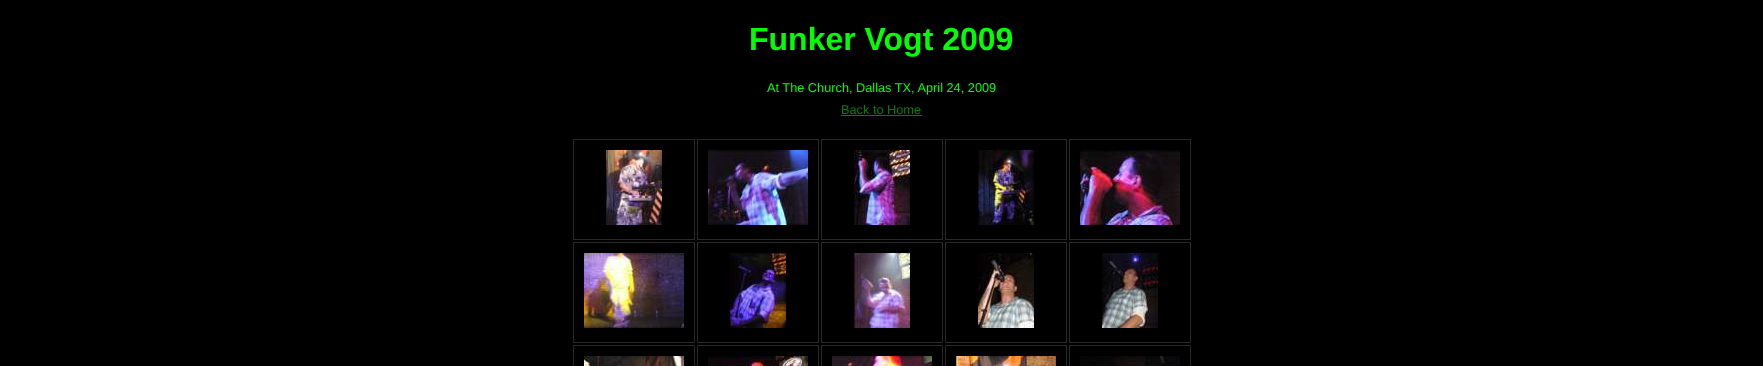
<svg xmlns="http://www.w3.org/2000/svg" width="1763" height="366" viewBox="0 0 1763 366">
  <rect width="100%" height="100%" fill="#000000"/>
  <text x="749" y="50" font-family="Liberation Sans" font-size="32" font-weight="bold" fill="#00ff00">Funker Vogt 2009</text>
  <text x="767" y="92" font-family="Liberation Sans" font-size="12.75" fill="#00ff00">At The Church, Dallas TX, April 24, 2009</text>
  <text x="841" y="114" font-family="Liberation Sans" font-size="12.75" fill="#008000">Back to Home</text>
  <rect x="841" y="115" width="81" height="1" fill="#008000"/>
  <rect x="573.5" y="139.5" width="121" height="100" fill="none" stroke="#282828"/>
  <image x="606" y="150" width="56" height="75" href="img1.png"/>
  <rect x="697.5" y="139.5" width="121" height="100" fill="none" stroke="#282828"/>
  <image x="708" y="150" width="100" height="75" href="img2.png"/>
  <rect x="821.5" y="139.5" width="121" height="100" fill="none" stroke="#282828"/>
  <image x="854" y="150" width="56" height="75" href="img3.png"/>
  <rect x="945.5" y="139.5" width="121" height="100" fill="none" stroke="#282828"/>
  <image x="978" y="150" width="56" height="75" href="img4.png"/>
  <rect x="1069.5" y="139.5" width="121" height="100" fill="none" stroke="#282828"/>
  <image x="1080" y="150" width="100" height="75" href="img5.png"/>
  <rect x="573.5" y="242.5" width="121" height="100" fill="none" stroke="#282828"/>
  <image x="584" y="253" width="100" height="75" href="img6.png"/>
  <rect x="697.5" y="242.5" width="121" height="100" fill="none" stroke="#282828"/>
  <image x="730" y="253" width="56" height="75" href="img7.png"/>
  <rect x="821.5" y="242.5" width="121" height="100" fill="none" stroke="#282828"/>
  <image x="854" y="253" width="56" height="75" href="img8.png"/>
  <rect x="945.5" y="242.5" width="121" height="100" fill="none" stroke="#282828"/>
  <image x="978" y="253" width="56" height="75" href="img9.png"/>
  <rect x="1069.5" y="242.5" width="121" height="100" fill="none" stroke="#282828"/>
  <image x="1102" y="253" width="56" height="75" href="img10.png"/>
  <rect x="573.5" y="345.5" width="121" height="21" fill="none" stroke="#282828"/>
  <image x="584" y="356" width="100" height="10" href="img11.png"/>
  <rect x="697.5" y="345.5" width="121" height="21" fill="none" stroke="#282828"/>
  <image x="708" y="356" width="100" height="10" href="img12.png"/>
  <rect x="821.5" y="345.5" width="121" height="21" fill="none" stroke="#282828"/>
  <image x="832" y="356" width="100" height="10" href="img13.png"/>
  <rect x="945.5" y="345.5" width="121" height="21" fill="none" stroke="#282828"/>
  <image x="956" y="356" width="100" height="10" href="img14.png"/>
  <rect x="1069.5" y="345.5" width="121" height="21" fill="none" stroke="#282828"/>
  <image x="1080" y="356" width="100" height="10" href="img15.png"/>
</svg>
